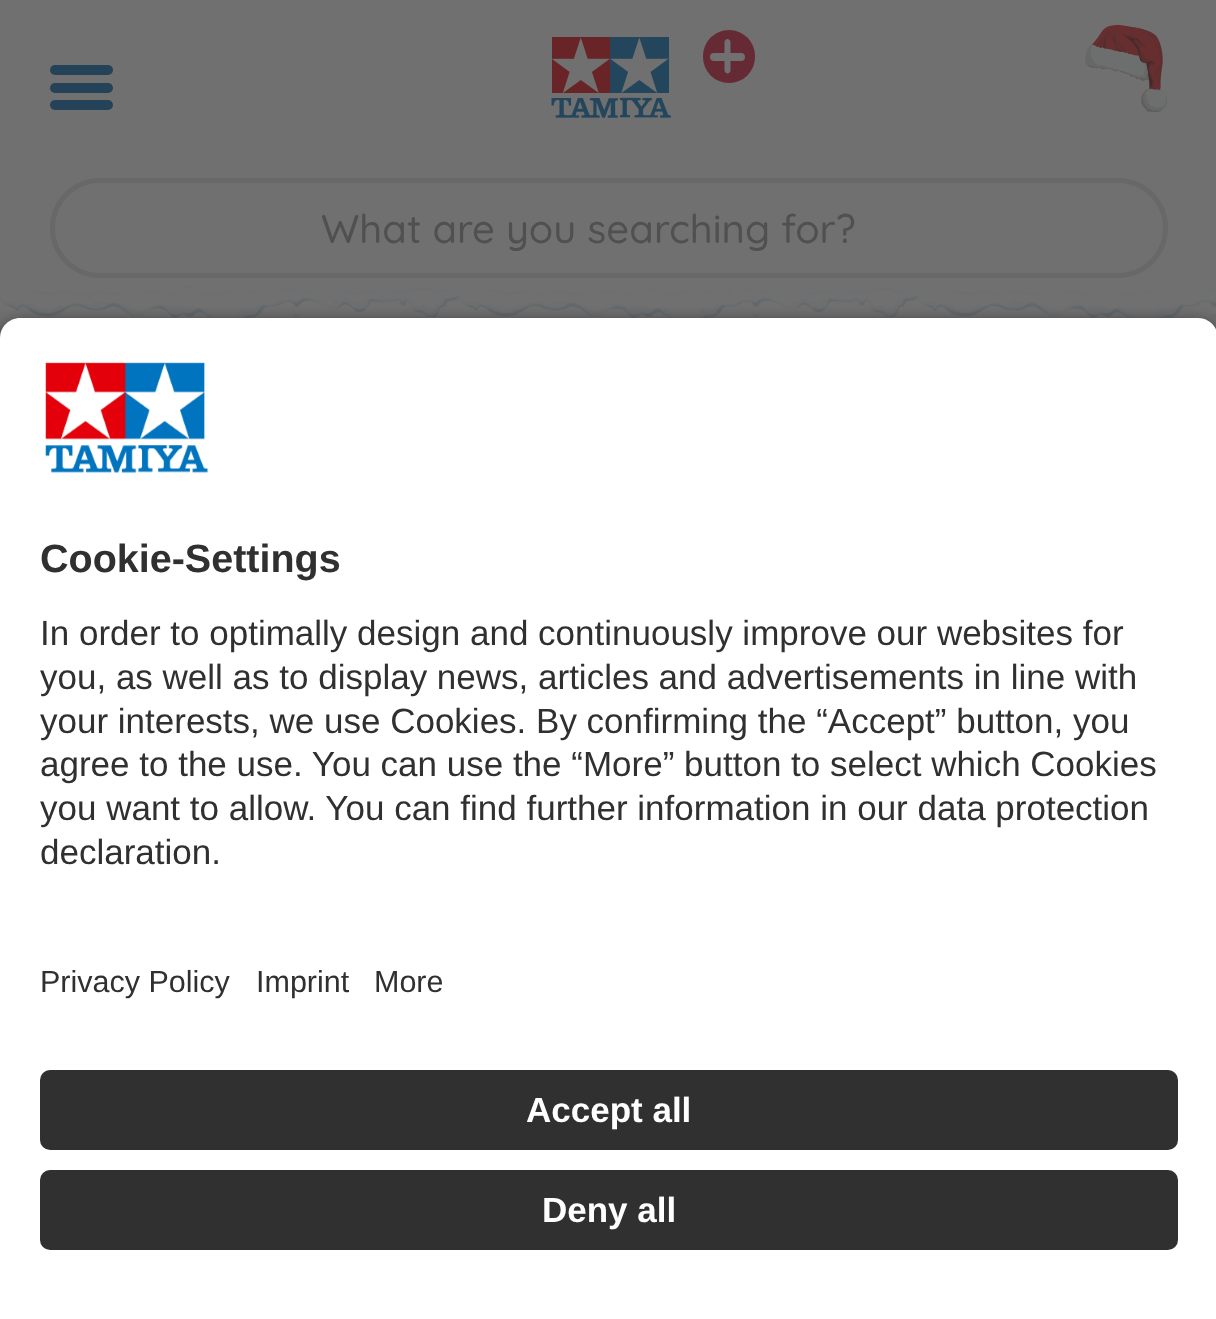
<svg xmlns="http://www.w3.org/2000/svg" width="1216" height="1319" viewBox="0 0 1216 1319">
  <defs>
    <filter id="blur1" x="-50%" y="-200%" width="200%" height="500%"><feGaussianBlur stdDeviation="9"/></filter>
  </defs>
  <rect width="100%" height="100%" fill="#707070"/>
  <rect x="50" y="65" width="63" height="10" rx="5" fill="#244359"/>
  <rect x="50" y="83" width="63" height="10" rx="5" fill="#244359"/>
  <rect x="50" y="100" width="63" height="10" rx="5" fill="#244359"/>
  <image x="551" y="37" width="120" height="81" href="img1.png"/>
  <rect x="703" y="30" width="52" height="53" rx="26" fill="#652a33"/>
  <rect x="710" y="53" width="35" height="8" rx="4" fill="#707070"/>
  <path d="M730.5 42V70.5C730.5 72 729 73.5 727.5 73.5C726 73.5 724.5 72 724.5 70.5V42C724.5 40.5 726 39 727.5 39C729 39 730.5 40.5 730.5 42Z" fill="#707070"/>
  <image x="1085" y="25" width="83" height="88" href="img2.png"/>
  <rect x="52.5" y="180.5" width="1113" height="95" rx="47.5" fill="none" stroke="#686868" stroke-width="5"/>
  <text x="321" y="243" font-family="Quicksand" font-size="40" font-weight="300" fill="#505050">What are you searching for?</text>
  <image x="0" y="287" width="1216" height="31" href="img3.png"/>
  <rect x="0" y="325" width="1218" height="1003" rx="20" fill="#000000" fill-opacity="0.8" filter="url(#blur1)"/>
  <path d="M20 318H1198C1209 318 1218 327 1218 338V925H0V338C0 327 9 318 20 318Z" fill="#ffffff"/>
  <image x="45" y="362" width="164" height="112" href="img4.png"/>
  <text x="40" y="572" font-family="Liberation Sans" font-size="39.5" font-weight="bold" fill="#303030">Cookie-Settings</text>
  <text x="40" y="645" font-family="Liberation Sans" font-size="35" fill="#303030">In order to optimally design and continuously improve our websites for</text>
  <text x="40" y="689" font-family="Liberation Sans" font-size="35" fill="#303030">you, as well as to display news, articles and advertisements in line with</text>
  <text x="40" y="733" font-family="Liberation Sans" font-size="35" fill="#303030">your interests, we use Cookies. By confirming the “Accept” button, you</text>
  <text x="40" y="776" font-family="Liberation Sans" font-size="35" fill="#303030">agree to the use. You can use the “More” button to select which Cookies</text>
  <text x="40" y="820" font-family="Liberation Sans" font-size="35" fill="#303030">you want to allow. You can find further information in our data protection</text>
  <text x="40" y="864" font-family="Liberation Sans" font-size="35" fill="#303030">declaration.</text>
  <rect x="0" y="925" width="1216" height="394" fill="#ffffff"/>
  <text x="40" y="992" font-family="Liberation Sans" font-size="30.5" fill="#303030">Privacy Policy</text>
  <text x="256" y="992" font-family="Liberation Sans" font-size="30.5" fill="#303030">Imprint</text>
  <text x="374" y="992" font-family="Liberation Sans" font-size="30.5" fill="#303030">More</text>
  <rect x="40" y="1070" width="1138" height="80" rx="10" fill="#303030"/>
  <text x="526" y="1122" font-family="Liberation Sans" font-size="35" font-weight="bold" fill="#ffffff">Accept all</text>
  <rect x="40" y="1170" width="1138" height="80" rx="10" fill="#303030"/>
  <text x="542" y="1222" font-family="Liberation Sans" font-size="35" font-weight="bold" fill="#ffffff">Deny all</text>
</svg>
